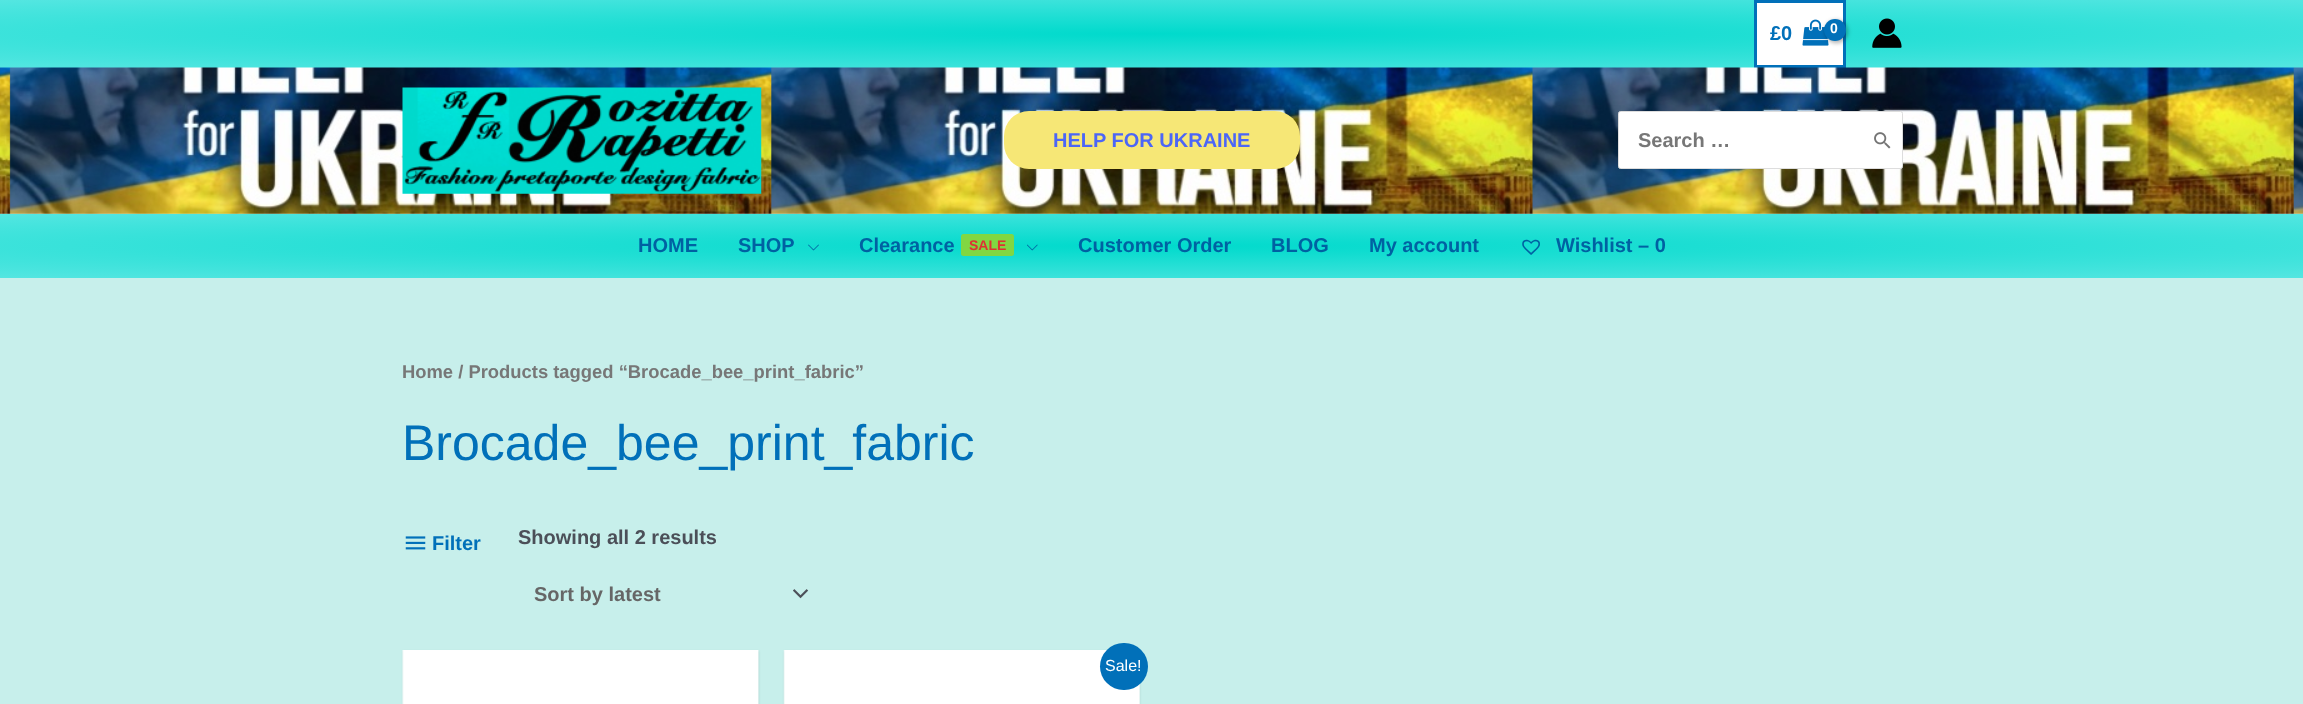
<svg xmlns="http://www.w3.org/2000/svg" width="2303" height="704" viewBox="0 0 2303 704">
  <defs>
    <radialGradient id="g1" gradientUnits="userSpaceOnUse" cx="0" cy="0" r="1" gradientTransform="matrix(1629 0 0 48 1152 34)"><stop offset="0" stop-color="#00dacc"/><stop offset="1" stop-color="#54e6e1"/></radialGradient>
    <filter id="blur1" x="-50%" y="-200%" width="200%" height="500%"><feGaussianBlur stdDeviation="2"/></filter>
    <radialGradient id="g2" gradientUnits="userSpaceOnUse" cx="0" cy="0" r="1" gradientTransform="matrix(1629 0 0 45 1152 246)"><stop offset="0" stop-color="#00dacc"/><stop offset="1" stop-color="#54e6e1"/></radialGradient>
    <filter id="blur2" x="-50%" y="-200%" width="200%" height="500%"><feGaussianBlur stdDeviation="1"/></filter>
  </defs>
  <rect width="100%" height="100%" fill="#c7efeb"/>
  <rect x="0" y="0" width="2303" height="68" fill="url(#g1)"/>
  <rect x="1755.5" y="1.5" width="89" height="65" fill="#ffffff" stroke="#0170b9" stroke-width="3"/>
  <text x="1770" y="40" font-family="Liberation Sans" font-size="20" font-weight="bold" fill="#0170b9">£0</text>
  <image x="1802" y="19" width="27" height="27" href="img1.png"/>
  <rect x="1825" y="20" width="23" height="23" rx="11.5" fill="#000000" fill-opacity="0.3" filter="url(#blur1)"/>
  <circle cx="1835" cy="30" r="11" fill="#0170b9"/>
  <text x="1830" y="33" font-family="Liberation Sans" font-size="14" font-weight="bold" letter-spacing="-1" fill="#ffffff">0</text>
  <image x="1872" y="18" width="30" height="30" href="img2.png"/>
  <image x="0" y="67" width="2303" height="147" href="img3.png"/>
  <image x="402" y="87" width="360" height="107" href="img4.png"/>
  <rect x="1004" y="111" width="296" height="58" rx="25" fill="#f6e776"/>
  <text x="1053" y="147" font-family="Liberation Sans" font-size="20" font-weight="bold" fill="#4c66f7">HELP FOR UKRAINE</text>
  <rect x="1618.5" y="111.5" width="284" height="57" rx="2" fill="#ffffff" stroke="#dddddd"/>
  <text x="1638" y="147" font-family="Liberation Sans" font-size="20" font-weight="bold" fill="#777777">Search …</text>
  <image x="1874" y="132" width="17" height="17" href="img5.png"/>
  <rect x="0" y="214" width="2303" height="64" fill="url(#g2)"/>
  <text x="638" y="252" font-family="Liberation Sans" font-size="20" font-weight="bold" fill="#0061a2">HOME</text>
  <text x="738" y="252" font-family="Liberation Sans" font-size="20" font-weight="bold" fill="#0061a2">SHOP</text>
  <image x="808" y="244" width="11" height="7" href="img6.png"/>
  <text x="859" y="252" font-family="Liberation Sans" font-size="20" font-weight="bold" fill="#0061a2">Clearance</text>
  <rect x="961" y="234" width="53" height="22" rx="2.5" fill="#81d742"/>
  <text x="969" y="250" font-family="Liberation Sans" font-size="14" font-weight="bold" fill="#dd3333">SALE</text>
  <image x="1027" y="244" width="11" height="7" href="img7.png"/>
  <text x="1078" y="252" font-family="Liberation Sans" font-size="20" font-weight="bold" fill="#0061a2">Customer Order</text>
  <text x="1271" y="252" font-family="Liberation Sans" font-size="20" font-weight="bold" fill="#0061a2">BLOG</text>
  <text x="1369" y="252" font-family="Liberation Sans" font-size="20" font-weight="bold" fill="#0061a2">My account</text>
  <image x="1522" y="239" width="18" height="16" href="img8.png"/>
  <text x="1556" y="252" font-family="Liberation Sans" font-size="20" font-weight="bold" fill="#0061a2">Wishlist – 0</text>
  <text x="402" y="378" font-family="Liberation Sans" font-size="18.4" font-weight="bold" fill="#777777">Home / Products tagged “Brocade_bee_print_fabric”</text>
  <text x="402" y="460" font-family="Liberation Sans" font-size="50" fill="#0170b9">Brocade_bee_print_fabric</text>
  <image x="405" y="536" width="21" height="14" href="img9.png"/>
  <text x="432" y="550" font-family="Liberation Sans" font-size="20" font-weight="bold" fill="#0170b9">Filter</text>
  <text x="518" y="544" font-family="Liberation Sans" font-size="20" font-weight="bold" fill="#4b4f58">Showing all 2 results</text>
  <image x="793" y="589" width="16" height="10" href="img10.png"/>
  <text x="534" y="601" font-family="Liberation Sans" font-size="20" font-weight="bold" fill="#666666">Sort by latest</text>
  <rect x="403" y="651" width="356" height="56" fill="#000000" fill-opacity="0.1" filter="url(#blur2)"/>
  <image x="402" y="650" width="357" height="54" href="img11.png"/>
  <rect x="784" y="651" width="356" height="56" fill="#000000" fill-opacity="0.1" filter="url(#blur2)"/>
  <image x="783" y="650" width="357" height="54" href="img12.png"/>
  <rect x="1100" y="643" width="48" height="47" rx="23.5" fill="#0170b9"/>
  <text x="1105" y="671" font-family="Liberation Sans" font-size="16" fill="#ffffff">Sale!</text>
</svg>
